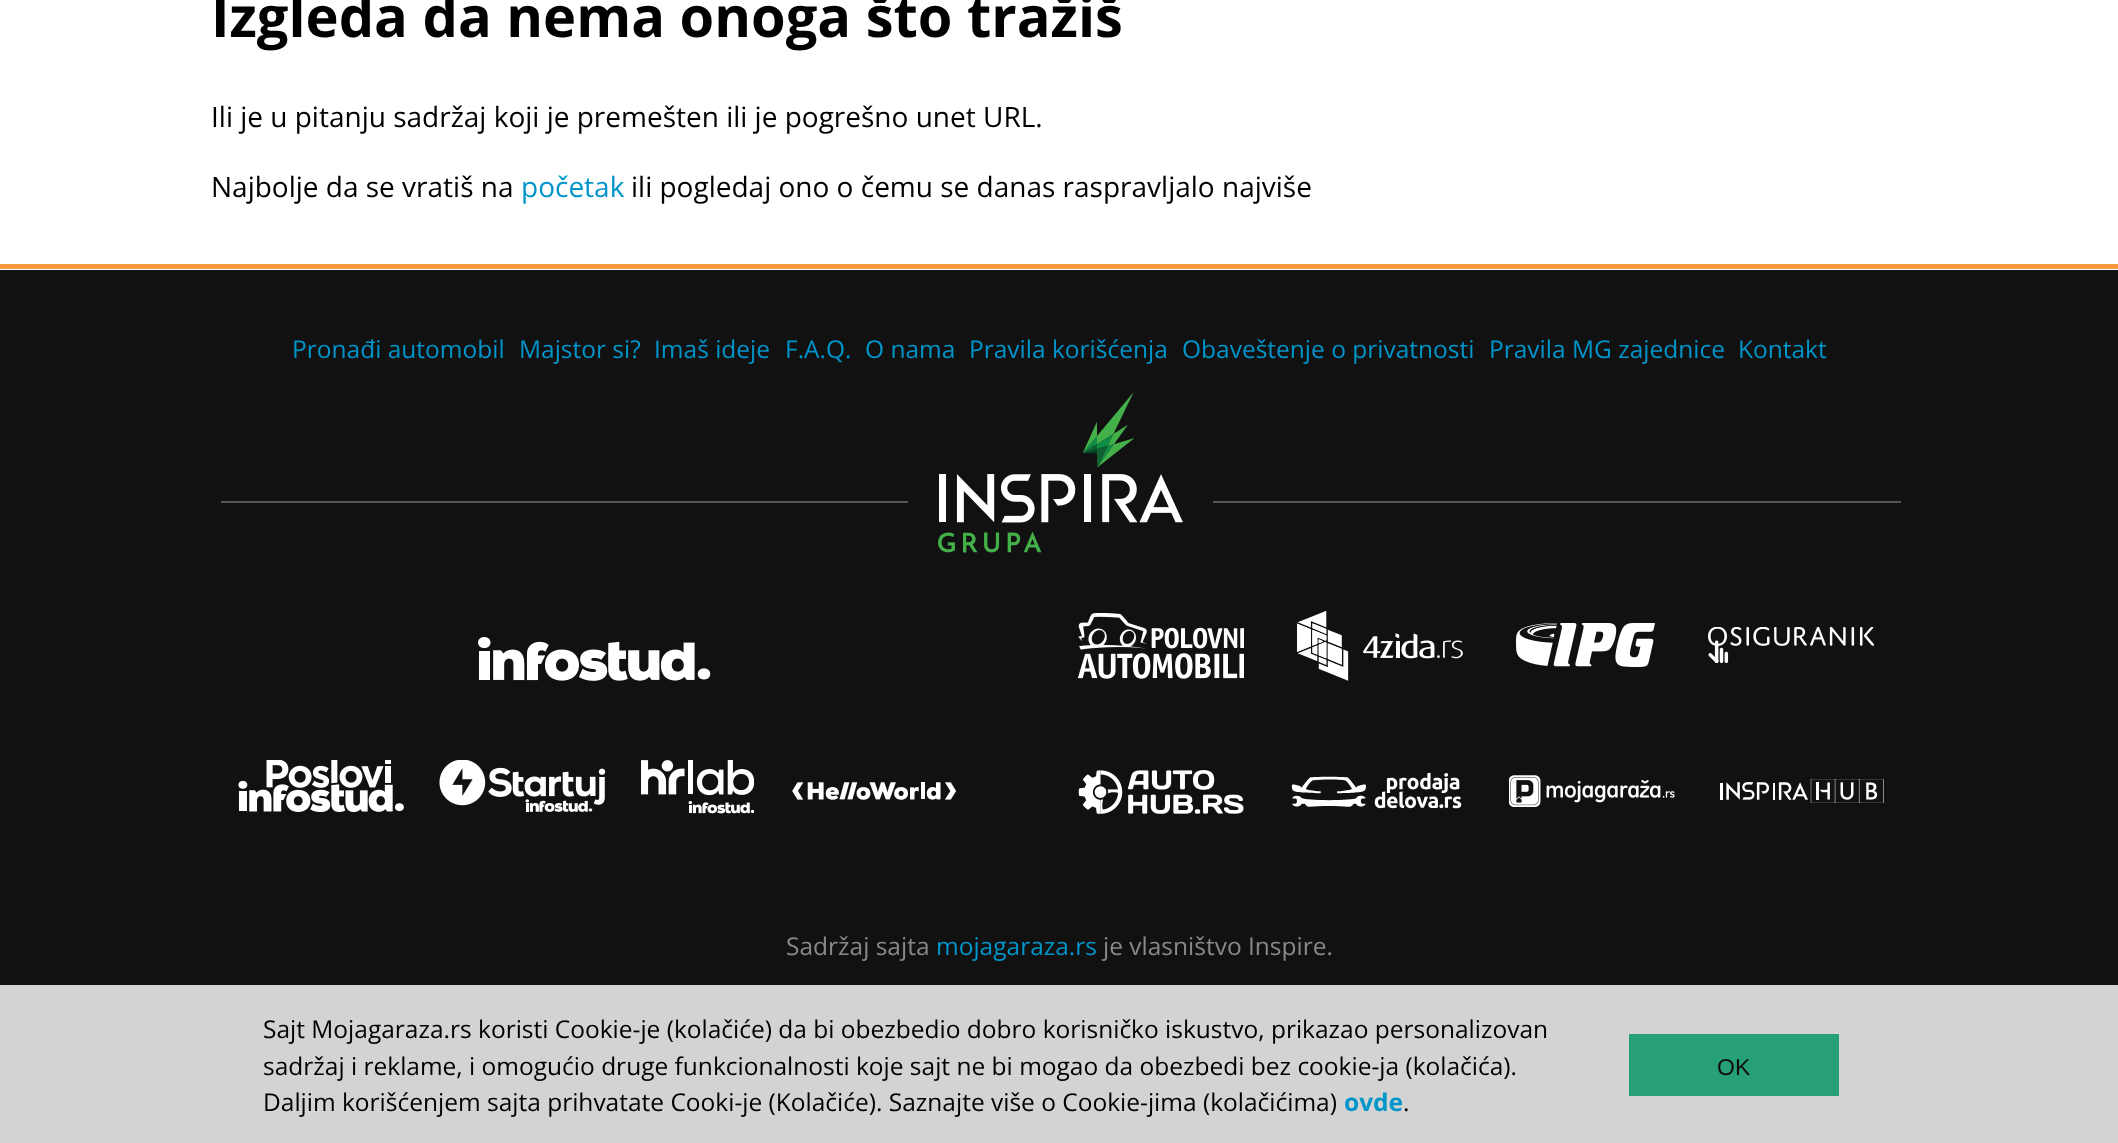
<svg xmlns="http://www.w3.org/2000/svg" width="2118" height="1143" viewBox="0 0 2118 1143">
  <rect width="100%" height="100%" fill="#ffffff"/>
  <text x="211" y="37" font-family="Open Sans" font-size="56" font-weight="bold" fill="#000000">Izgleda da nema onoga što tražiš</text>
  <text x="211" y="127" font-family="Open Sans" font-size="28" fill="#000000">Ili je u pitanju sadržaj koji je premešten ili je pogrešno unet URL.</text>
  <text x="211" y="197" font-family="Open Sans" font-size="28" fill="#000000">Najbolje da se vratiš na</text>
  <text x="521" y="197" font-family="Open Sans" font-size="28" fill="#0095ca">početak</text>
  <text x="631" y="197" font-family="Open Sans" font-size="28" fill="#000000">ili pogledaj ono o čemu se danas raspravljalo najviše</text>
  <rect x="0" y="270" width="2118" height="715" fill="#111111"/>
  <rect x="0" y="264" width="2118" height="5" fill="#f6993f"/>
  <text x="292" y="358" font-family="Open Sans" font-size="24.5" fill="#0095ca">Pronađi automobil</text>
  <text x="519" y="358" font-family="Open Sans" font-size="24.5" fill="#0095ca">Majstor si?</text>
  <text x="654" y="358" font-family="Open Sans" font-size="24.5" fill="#0095ca">Imaš ideje</text>
  <text x="785" y="358" font-family="Open Sans" font-size="24.5" fill="#0095ca">F.A.Q.</text>
  <text x="865" y="358" font-family="Open Sans" font-size="24.5" fill="#0095ca">O nama</text>
  <text x="969" y="358" font-family="Open Sans" font-size="24.5" fill="#0095ca">Pravila korišćenja</text>
  <text x="1182" y="358" font-family="Open Sans" font-size="24.5" fill="#0095ca">Obaveštenje o privatnosti</text>
  <text x="1489" y="358" font-family="Open Sans" font-size="24.5" fill="#0095ca">Pravila MG zajednice</text>
  <text x="1738" y="358" font-family="Open Sans" font-size="24.5" fill="#0095ca">Kontakt</text>
  <rect x="221" y="501" width="687" height="2" fill="#555555"/>
  <image x="938" y="392" width="245" height="161" href="img1.png"/>
  <rect x="1213" y="501" width="688" height="2" fill="#555555"/>
  <image x="478" y="637" width="233" height="44" href="img2.png"/>
  <image x="238" y="760" width="166" height="52" href="img3.png"/>
  <image x="439" y="760" width="167" height="52" href="img4.png"/>
  <image x="641" y="760" width="113" height="54" href="img5.png"/>
  <image x="792" y="782" width="164" height="18" href="img6.png"/>
  <image x="1078" y="613" width="166" height="66" href="img7.png"/>
  <image x="1297" y="611" width="166" height="70" href="img8.png"/>
  <image x="1516" y="623" width="139" height="44" href="img9.png"/>
  <image x="1708" y="627" width="166" height="36" href="img10.png"/>
  <image x="1078" y="770" width="166" height="44" href="img11.png"/>
  <image x="1291" y="772" width="171" height="37" href="img12.png"/>
  <image x="1509" y="775" width="166" height="32" href="img13.png"/>
  <image x="1720" y="779" width="164" height="24" href="img14.png"/>
  <text x="786" y="955" font-family="Open Sans" font-size="24.5" fill="#898989">Sadržaj sajta</text>
  <text x="936" y="955" font-family="Open Sans" font-size="24.5" fill="#0095ca">mojagaraza.rs</text>
  <text x="1103" y="955" font-family="Open Sans" font-size="24.5" fill="#898989">je vlasništvo Inspire.</text>
  <rect x="0" y="985" width="2118" height="158" fill="#d3d3d3"/>
  <text x="263" y="1038" font-family="Open Sans" font-size="24.5" fill="#000000">Sajt Mojagaraza.rs koristi Cookie-je (kolačiće) da bi obezbedio dobro korisničko iskustvo, prikazao personalizovan</text>
  <text x="263" y="1075" font-family="Open Sans" font-size="24.5" fill="#000000">sadržaj i reklame, i omogućio druge funkcionalnosti koje sajt ne bi mogao da obezbedi bez cookie-ja (kolačića).</text>
  <text x="263" y="1111" font-family="Open Sans" font-size="24.5" fill="#000000">Daljim korišćenjem sajta prihvatate Cooki-je (Kolačiće). Saznajte više o Cookie-jima (kolačićima)</text>
  <text x="1344" y="1111" font-family="Open Sans" font-size="24.5" font-weight="bold" fill="#0095ca">ovde</text>
  <text x="1403" y="1111" font-family="Open Sans" font-size="24.5" fill="#000000">.</text>
  <rect x="1629" y="1034" width="210" height="62" fill="#27a07a"/>
  <text x="1717" y="1075" font-family="Liberation Sans" font-size="23" fill="#0e0e0e">OK</text>
</svg>
